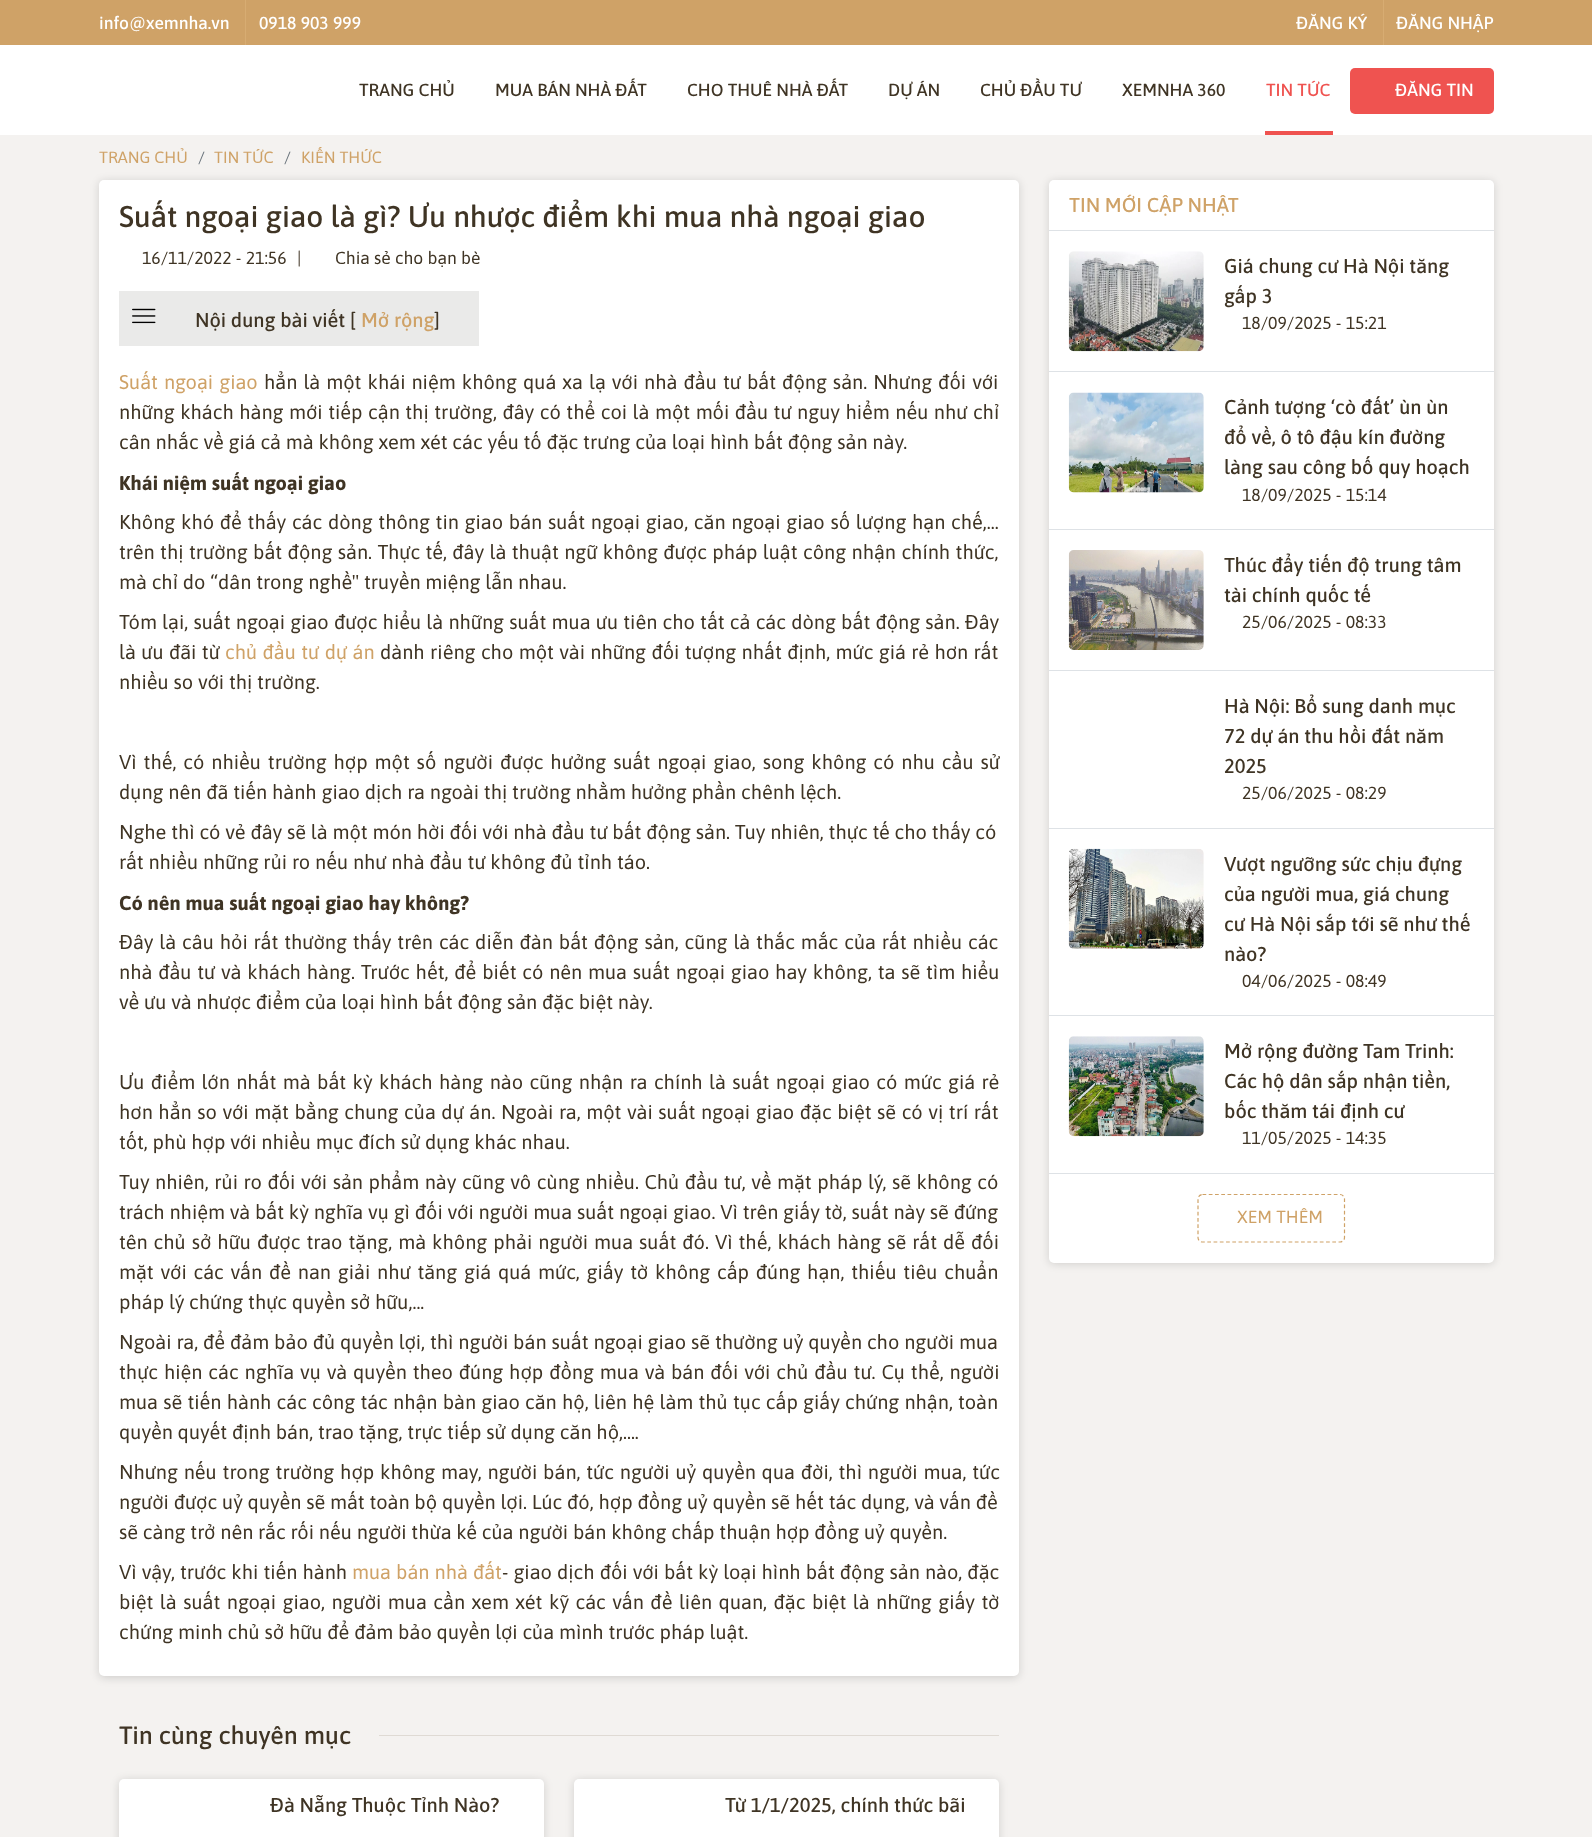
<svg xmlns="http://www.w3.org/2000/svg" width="1592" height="1837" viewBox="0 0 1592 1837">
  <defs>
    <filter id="blur1" x="-50%" y="-200%" width="200%" height="500%"><feGaussianBlur stdDeviation="4.5"/></filter>
  </defs>
  <rect width="100%" height="100%" fill="#f4f2f0"/>
  <rect x="0" y="0" width="1592" height="45" fill="#cfa267"/>
  <text x="99" y="29" font-family="Asap" font-size="17.5" font-weight="500" fill="#ffffff">info@xemnha.vn</text>
  <rect x="245" y="0" width="1" height="45" fill="#d7ac72"/>
  <text x="259" y="29" font-family="Asap" font-size="17.5" font-weight="500" fill="#ffffff">0918 903 999</text>
  <text x="1296" y="29" font-family="Asap" font-size="17.5" font-weight="500" fill="#ffffff">ĐĂNG KÝ</text>
  <rect x="1383" y="0" width="1" height="45" fill="#d7ac72"/>
  <text x="1396" y="29" font-family="Asap" font-size="17.5" font-weight="500" fill="#ffffff">ĐĂNG NHẬP</text>
  <rect x="0" y="45" width="1592" height="90" fill="#ffffff"/>
  <text x="359" y="96" font-family="Asap" font-size="17.5" font-weight="500" fill="#3f3424">TRANG CHỦ</text>
  <text x="495" y="96" font-family="Asap" font-size="17.5" font-weight="500" fill="#3f3424">MUA BÁN NHÀ ĐẤT</text>
  <text x="687" y="96" font-family="Asap" font-size="17.5" font-weight="500" fill="#3f3424">CHO THUÊ NHÀ ĐẤT</text>
  <text x="888" y="96" font-family="Asap" font-size="17.5" font-weight="500" fill="#3f3424">DỰ ÁN</text>
  <text x="980" y="96" font-family="Asap" font-size="17.5" font-weight="500" fill="#3f3424">CHỦ ĐẦU TƯ</text>
  <text x="1122" y="96" font-family="Asap" font-size="17.5" font-weight="500" fill="#3f3424">XEMNHA 360</text>
  <text x="1266" y="96" font-family="Asap" font-size="17.5" font-weight="500" fill="#ef5350">TIN TỨC</text>
  <rect x="1265" y="131" width="68" height="4" fill="#ef5350"/>
  <rect x="1350" y="68" width="144" height="46" rx="5" fill="#ef5350"/>
  <text x="1395" y="96" font-family="Asap" font-size="17.5" font-weight="500" fill="#ffffff">ĐĂNG TIN</text>
  <text x="99" y="163" font-family="Asap" font-size="16.25" fill="#cfa267">TRANG CHỦ</text>
  <text x="198" y="163" font-family="Asap" font-size="16.25" fill="#6c757d">/</text>
  <text x="214" y="163" font-family="Asap" font-size="16.25" fill="#cfa267">TIN TỨC</text>
  <text x="284" y="163" font-family="Asap" font-size="16.25" fill="#6c757d">/</text>
  <text x="301" y="163" font-family="Asap" font-size="16.25" fill="#cfa267">KIẾN THỨC</text>
  <rect x="99" y="181" width="920" height="1497" rx="5" fill="#000000" fill-opacity="0.15" filter="url(#blur1)"/>
  <rect x="99" y="180" width="920" height="1496" rx="5" fill="#ffffff"/>
  <text x="119" y="227" font-family="Asap" font-size="30" font-weight="500" fill="#3f3424">Suất ngoại giao là gì? Ưu nhược điểm khi mua nhà ngoại giao</text>
  <text x="142" y="264" font-family="Asap" font-size="17.5" fill="#3f3424">16/11/2022 - 21:56</text>
  <text x="297" y="264" font-family="Asap" font-size="17.5" fill="#3f3424">|</text>
  <text x="335" y="264" font-family="Asap" font-size="17.5" fill="#3f3424">Chia sẻ cho bạn bè</text>
  <rect x="119" y="291" width="360" height="55" fill="#eaeae9"/>
  <image x="132" y="308" width="24" height="16" href="img1.png"/>
  <text x="195" y="327" font-family="Asap" font-size="20" font-weight="500" fill="#3f3424">Nội dung bài viết [</text>
  <text x="361" y="327" font-family="Asap" font-size="20" font-weight="500" fill="#cfa267">Mở rộng</text>
  <text x="434" y="327" font-family="Asap" font-size="20" font-weight="500" fill="#3f3424">]</text>
  <text x="119" y="389" word-spacing="1.25" font-family="Asap" font-size="20" fill="#cfa267">Suất ngoại giao</text>
  <text x="264" y="389" word-spacing="1.25" font-family="Asap" font-size="20" fill="#3f3424">hẳn là một khái niệm không quá xa lạ với nhà đầu tư bất động sản. Nhưng đối với</text>
  <text x="119" y="419" word-spacing="0.7" font-family="Asap" font-size="20" fill="#3f3424">những khách hàng mới tiếp cận thị trường, đây có thể coi là một mối đầu tư nguy hiểm nếu như chỉ</text>
  <text x="119" y="449" font-family="Asap" font-size="20" fill="#3f3424">cân nhắc về giá cả mà không xem xét các yếu tố đặc trưng của loại hình bất động sản này.</text>
  <text x="119" y="490" font-family="Asap" font-size="20" font-weight="bold" fill="#3f3424">Khái niệm suất ngoại giao</text>
  <text x="119" y="529" word-spacing="0.9" font-family="Asap" font-size="20" fill="#3f3424">Không khó để thấy các dòng thông tin giao bán suất ngoại giao, căn ngoại giao số lượng hạn chế,...</text>
  <text x="119" y="559" word-spacing="0.6" font-family="Asap" font-size="20" fill="#3f3424">trên thị trường bất động sản. Thực tế, đây là thuật ngữ không được pháp luật công nhận chính thức,</text>
  <text x="119" y="589" font-family="Asap" font-size="20" fill="#3f3424">mà chỉ do “dân trong nghề" truyền miệng lẫn nhau.</text>
  <text x="119" y="629" word-spacing="0.4" font-family="Asap" font-size="20" fill="#3f3424">Tóm lại, suất ngoại giao được hiểu là những suất mua ưu tiên cho tất cả các dòng bất động sản. Đây</text>
  <text x="119" y="659" word-spacing="0.6" font-family="Asap" font-size="20" fill="#3f3424">là ưu đãi từ</text>
  <text x="225" y="659" word-spacing="0.6" font-family="Asap" font-size="20" fill="#cfa267">chủ đầu tư dự án</text>
  <text x="380" y="659" word-spacing="0.6" font-family="Asap" font-size="20" fill="#3f3424">dành riêng cho một vài những đối tượng nhất định, mức giá rẻ hơn rất</text>
  <text x="119" y="689" font-family="Asap" font-size="20" fill="#3f3424">nhiều so với thị trường.</text>
  <text x="119" y="769" word-spacing="2.1" font-family="Asap" font-size="20" fill="#3f3424">Vì thế, có nhiều trường hợp một số người được hưởng suất ngoại giao, song không có nhu cầu sử</text>
  <text x="119" y="799" font-family="Asap" font-size="20" fill="#3f3424">dụng nên đã tiến hành giao dịch ra ngoài thị trường nhằm hưởng phần chênh lệch.</text>
  <text x="119" y="839" font-family="Asap" font-size="20" fill="#3f3424">Nghe thì có vẻ đây sẽ là một món hời đối với nhà đầu tư bất động sản. Tuy nhiên, thực tế cho thấy có</text>
  <text x="119" y="869" font-family="Asap" font-size="20" fill="#3f3424">rất nhiều những rủi ro nếu như nhà đầu tư không đủ tỉnh táo.</text>
  <text x="119" y="910" font-family="Asap" font-size="20" font-weight="bold" fill="#3f3424">Có nên mua suất ngoại giao hay không?</text>
  <text x="119" y="949" word-spacing="1.1" font-family="Asap" font-size="20" fill="#3f3424">Đây là câu hỏi rất thường thấy trên các diễn đàn bất động sản, cũng là thắc mắc của rất nhiều các</text>
  <text x="119" y="979" word-spacing="1" font-family="Asap" font-size="20" fill="#3f3424">nhà đầu tư và khách hàng. Trước hết, để biết có nên mua suất ngoại giao hay không, ta sẽ tìm hiểu</text>
  <text x="119" y="1009" font-family="Asap" font-size="20" fill="#3f3424">về ưu và nhược điểm của loại hình bất động sản đặc biệt này.</text>
  <text x="119" y="1089" word-spacing="1.6" font-family="Asap" font-size="20" fill="#3f3424">Ưu điểm lớn nhất mà bất kỳ khách hàng nào cũng nhận ra chính là suất ngoại giao có mức giá rẻ</text>
  <text x="119" y="1119" word-spacing="0.75" font-family="Asap" font-size="20" fill="#3f3424">hơn hẳn so với mặt bằng chung của dự án. Ngoài ra, một vài suất ngoại giao đặc biệt sẽ có vị trí rất</text>
  <text x="119" y="1149" font-family="Asap" font-size="20" fill="#3f3424">tốt, phù hợp với nhiều mục đích sử dụng khác nhau.</text>
  <text x="119" y="1189" word-spacing="0.75" font-family="Asap" font-size="20" fill="#3f3424">Tuy nhiên, rủi ro đối với sản phẩm này cũng vô cùng nhiều. Chủ đầu tư, về mặt pháp lý, sẽ không có</text>
  <text x="119" y="1219" font-family="Asap" font-size="20" fill="#3f3424">trách nhiệm và bất kỳ nghĩa vụ gì đối với người mua suất ngoại giao. Vì trên giấy tờ, suất này sẽ đứng</text>
  <text x="119" y="1249" word-spacing="1.2" font-family="Asap" font-size="20" fill="#3f3424">tên chủ sở hữu được trao tặng, mà không phải người mua suất đó. Vì thế, khách hàng sẽ rất dễ đối</text>
  <text x="119" y="1279" word-spacing="2" font-family="Asap" font-size="20" fill="#3f3424">mặt với các vấn đề nan giải như tăng giá quá mức, giấy tờ không cấp đúng hạn, thiếu tiêu chuẩn</text>
  <text x="119" y="1309" font-family="Asap" font-size="20" fill="#3f3424">pháp lý chứng thực quyền sở hữu,...</text>
  <text x="119" y="1349" word-spacing="0.1" font-family="Asap" font-size="20" fill="#3f3424">Ngoài ra, để đảm bảo đủ quyền lợi, thì người bán suất ngoại giao sẽ thường uỷ quyền cho người mua</text>
  <text x="119" y="1379" word-spacing="1.1" font-family="Asap" font-size="20" fill="#3f3424">thực hiện các nghĩa vụ và quyền theo đúng hợp đồng mua và bán đối với chủ đầu tư. Cụ thể, người</text>
  <text x="119" y="1409" word-spacing="0.4" font-family="Asap" font-size="20" fill="#3f3424">mua sẽ tiến hành các công tác nhận bàn giao căn hộ, liên hệ làm thủ tục cấp giấy chứng nhận, toàn</text>
  <text x="119" y="1439" font-family="Asap" font-size="20" fill="#3f3424">quyền quyết định bán, trao tặng, trực tiếp sử dụng căn hộ,....</text>
  <text x="119" y="1479" word-spacing="1" font-family="Asap" font-size="20" fill="#3f3424">Nhưng nếu trong trường hợp không may, người bán, tức người uỷ quyền qua đời, thì người mua, tức</text>
  <text x="119" y="1509" font-family="Asap" font-size="20" fill="#3f3424">người được uỷ quyền sẽ mất toàn bộ quyền lợi. Lúc đó, hợp đồng uỷ quyền sẽ hết tác dụng, và vấn đề</text>
  <text x="119" y="1539" font-family="Asap" font-size="20" fill="#3f3424">sẽ càng trở nên rắc rối nếu người thừa kế của người bán không chấp thuận hợp đồng uỷ quyền.</text>
  <text x="119" y="1579" word-spacing="0.25" font-family="Asap" font-size="20" fill="#3f3424">Vì vậy, trước khi tiến hành</text>
  <text x="352" y="1579" word-spacing="0.25" font-family="Asap" font-size="20" fill="#cfa267">mua bán nhà đất</text>
  <text x="502" y="1579" word-spacing="0.25" font-family="Asap" font-size="20" fill="#3f3424">- giao dịch đối với bất kỳ loại hình bất động sản nào, đặc</text>
  <text x="119" y="1609" word-spacing="1.7" font-family="Asap" font-size="20" fill="#3f3424">biệt là suất ngoại giao, người mua cần xem xét kỹ các vấn đề liên quan, đặc biệt là những giấy tờ</text>
  <text x="119" y="1639" font-family="Asap" font-size="20" fill="#3f3424">chứng minh chủ sở hữu để đảm bảo quyền lợi của mình trước pháp luật.</text>
  <text x="119" y="1744" font-family="Asap" font-size="25" font-weight="500" fill="#3f3424">Tin cùng chuyên mục</text>
  <rect x="379" y="1735" width="620" height="1" fill="#dfdad4"/>
  <rect x="119" y="1780" width="425" height="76" rx="5" fill="#000000" fill-opacity="0.15" filter="url(#blur1)"/>
  <rect x="119" y="1779" width="425" height="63" rx="5" fill="#ffffff"/>
  <text x="270" y="1812" font-family="Asap" font-size="20" font-weight="500" fill="#3f3424">Đà Nẵng Thuộc Tỉnh Nào?</text>
  <rect x="574" y="1780" width="425" height="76" rx="5" fill="#000000" fill-opacity="0.15" filter="url(#blur1)"/>
  <rect x="574" y="1779" width="425" height="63" rx="5" fill="#ffffff"/>
  <text x="725" y="1812" font-family="Asap" font-size="20" font-weight="500" fill="#3f3424">Từ 1/1/2025, chính thức bãi</text>
  <rect x="1049" y="181" width="445" height="1083" rx="5" fill="#000000" fill-opacity="0.15" filter="url(#blur1)"/>
  <rect x="1049" y="180" width="445" height="1083" rx="5" fill="#ffffff"/>
  <text x="1069" y="212" font-family="Asap" font-size="20" font-weight="500" fill="#cfa267">TIN MỚI CẬP NHẬT</text>
  <rect x="1049" y="230" width="445" height="1" fill="#dee2e6"/>
  <image x="1068" y="251" width="136" height="101" href="img2.png"/>
  <text x="1224" y="273" font-family="Asap" font-size="20" font-weight="500" fill="#3f3424">Giá chung cư Hà Nội tăng</text>
  <text x="1224" y="303" font-family="Asap" font-size="20" font-weight="500" fill="#3f3424">gấp 3</text>
  <text x="1242" y="329" font-family="Asap" font-size="17.5" fill="#3f3424">18/09/2025 - 15:21</text>
  <rect x="1049" y="371" width="445" height="1" fill="#dee2e6"/>
  <image x="1068" y="392" width="136" height="101" href="img3.png"/>
  <text x="1224" y="414" font-family="Asap" font-size="20" font-weight="500" fill="#3f3424">Cảnh tượng ‘cò đất’ ùn ùn</text>
  <text x="1224" y="444" font-family="Asap" font-size="20" font-weight="500" fill="#3f3424">đổ về, ô tô đậu kín đường</text>
  <text x="1224" y="474" font-family="Asap" font-size="20" font-weight="500" fill="#3f3424">làng sau công bố quy hoạch</text>
  <text x="1242" y="501" font-family="Asap" font-size="17.5" fill="#3f3424">18/09/2025 - 15:14</text>
  <rect x="1049" y="529" width="445" height="1" fill="#dee2e6"/>
  <image x="1068" y="550" width="136" height="100" href="img4.png"/>
  <text x="1224" y="572" font-family="Asap" font-size="20" font-weight="500" fill="#3f3424">Thúc đẩy tiến độ trung tâm</text>
  <text x="1224" y="602" font-family="Asap" font-size="20" font-weight="500" fill="#3f3424">tài chính quốc tế</text>
  <text x="1242" y="628" font-family="Asap" font-size="17.5" fill="#3f3424">25/06/2025 - 08:33</text>
  <rect x="1049" y="670" width="445" height="1" fill="#dee2e6"/>
  <text x="1224" y="713" font-family="Asap" font-size="20" font-weight="500" fill="#3f3424">Hà Nội: Bổ sung danh mục</text>
  <text x="1224" y="743" font-family="Asap" font-size="20" font-weight="500" fill="#3f3424">72 dự án thu hồi đất năm</text>
  <text x="1224" y="773" font-family="Asap" font-size="20" font-weight="500" fill="#3f3424">2025</text>
  <text x="1242" y="799" font-family="Asap" font-size="17.5" fill="#3f3424">25/06/2025 - 08:29</text>
  <rect x="1049" y="828" width="445" height="1" fill="#dee2e6"/>
  <image x="1068" y="848" width="136" height="101" href="img5.png"/>
  <text x="1224" y="871" font-family="Asap" font-size="20" font-weight="500" fill="#3f3424">Vượt ngưỡng sức chịu đựng</text>
  <text x="1224" y="901" font-family="Asap" font-size="20" font-weight="500" fill="#3f3424">của người mua, giá chung</text>
  <text x="1224" y="931" font-family="Asap" font-size="20" font-weight="500" fill="#3f3424">cư Hà Nội sắp tới sẽ như thế</text>
  <text x="1224" y="961" font-family="Asap" font-size="20" font-weight="500" fill="#3f3424">nào?</text>
  <text x="1242" y="987" font-family="Asap" font-size="17.5" fill="#3f3424">04/06/2025 - 08:49</text>
  <rect x="1049" y="1015" width="445" height="1" fill="#dee2e6"/>
  <image x="1068" y="1036" width="136" height="101" href="img6.png"/>
  <text x="1224" y="1058" font-family="Asap" font-size="20" font-weight="500" fill="#3f3424">Mở rộng đường Tam Trinh:</text>
  <text x="1224" y="1088" font-family="Asap" font-size="20" font-weight="500" fill="#3f3424">Các hộ dân sắp nhận tiền,</text>
  <text x="1224" y="1118" font-family="Asap" font-size="20" font-weight="500" fill="#3f3424">bốc thăm tái định cư</text>
  <text x="1242" y="1144" font-family="Asap" font-size="17.5" fill="#3f3424">11/05/2025 - 14:35</text>
  <rect x="1049" y="1173" width="445" height="1" fill="#dee2e6"/>
  <path d="M1202.5 1194.5H1340C1342.5 1194.5 1344.5 1196.5 1344.5 1199V1237.5C1344.5 1240 1342.5 1242 1340 1242H1202.5C1200 1242 1198 1240 1198 1237.5V1199C1198 1196.5 1200 1194.5 1202.5 1194.5Z" fill="none" stroke="#cfa267" stroke-width="1.2" stroke-dasharray="3.75 2.5"/>
  <text x="1237" y="1223" font-family="Asap" font-size="17.5" fill="#cfa267">XEM THÊM</text>
</svg>
